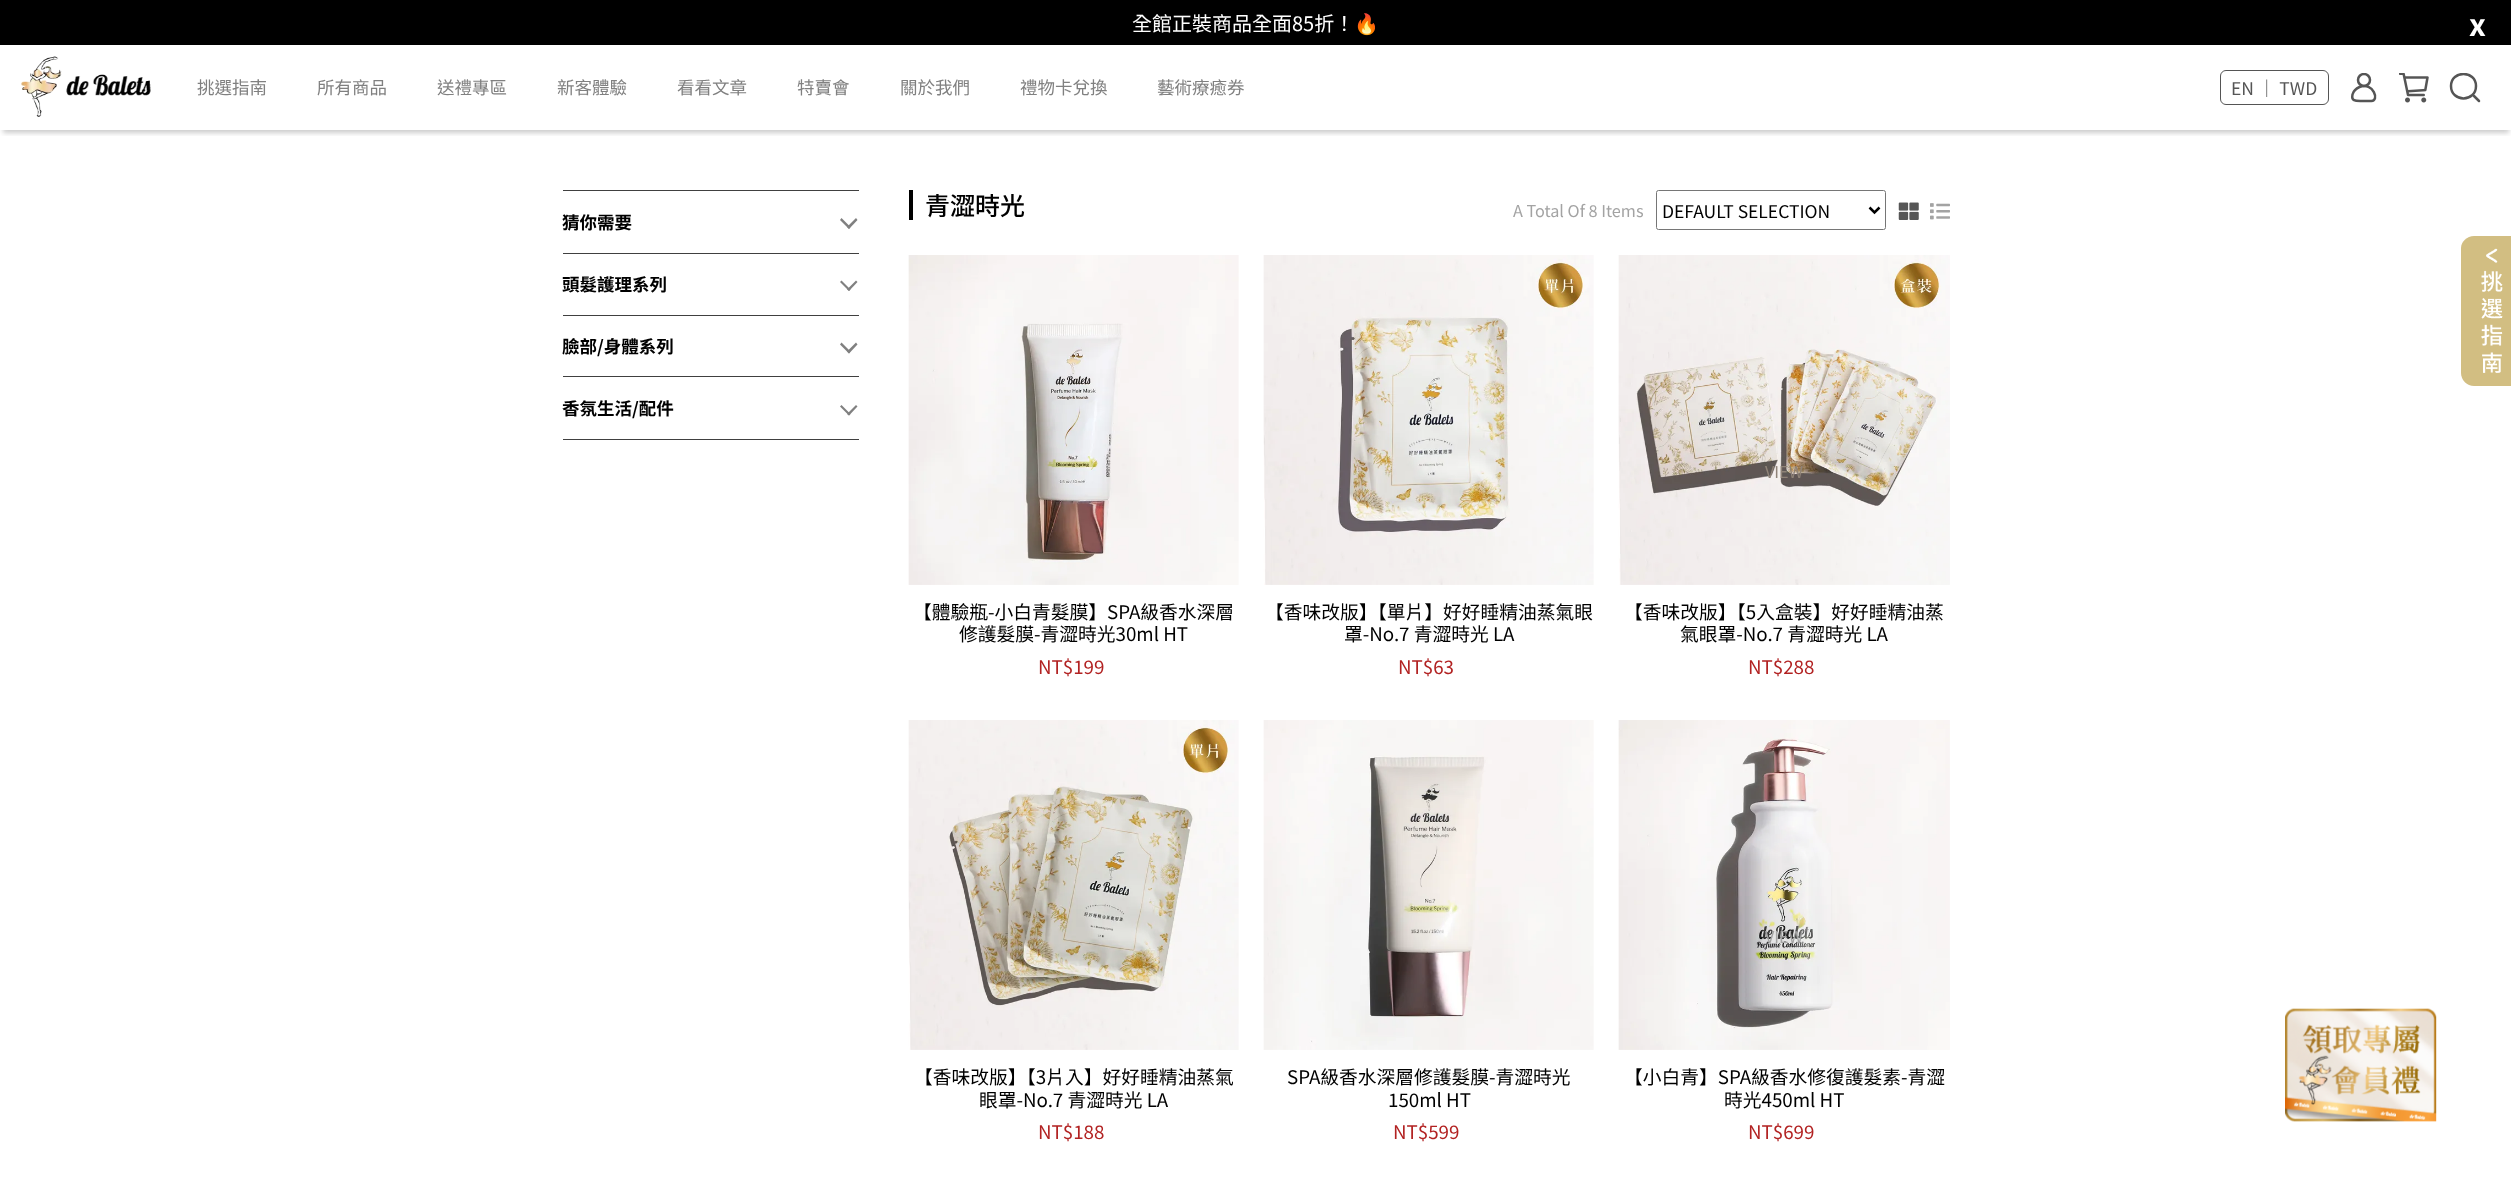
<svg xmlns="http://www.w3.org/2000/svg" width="2511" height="1180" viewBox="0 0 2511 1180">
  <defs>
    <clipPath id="clip1"><rect x="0" y="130" width="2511" height="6"/></clipPath>
    <filter id="blur1" x="-50%" y="-200%" width="200%" height="500%"><feGaussianBlur stdDeviation="2.5"/></filter>
    <clipPath id="clip2"><rect x="2349" y="73" width="30" height="30"/></clipPath>
    <clipPath id="clip3"><rect x="2449" y="73" width="32" height="30"/></clipPath>
  </defs>
  <rect width="100%" height="100%" fill="#ffffff"/>
  <g clip-path="url(#clip1)">
    <rect x="3" y="53" width="2506" height="80" fill="#000000" fill-opacity="0.2" filter="url(#blur1)"/>
  </g>
  <rect x="0" y="0" width="2511" height="45" fill="#000000"/>
  <text x="1132" y="31" font-family="Noto Sans TC" font-size="20" fill="#ffffff">全館正裝商品全面85折！</text>
  <text x="1354" y="31" font-family="Noto Color Emoji" font-size="20" fill="#ffffff">🔥</text>
  <text x="2469" y="36" font-family="Noto Sans TC" font-size="30" font-weight="bold" fill="#ffffff">x</text>
  <image x="21" y="56" width="130" height="61" href="img1.png"/>
  <text x="197" y="94" font-family="Noto Sans TC" font-size="17.5" fill="#808080">挑選指南</text>
  <text x="317" y="94" font-family="Noto Sans TC" font-size="17.5" fill="#808080">所有商品</text>
  <text x="437" y="94" font-family="Noto Sans TC" font-size="17.5" fill="#808080">送禮專區</text>
  <text x="557" y="94" font-family="Noto Sans TC" font-size="17.5" fill="#808080">新客體驗</text>
  <text x="677" y="94" font-family="Noto Sans TC" font-size="17.5" fill="#808080">看看文章</text>
  <text x="797" y="94" font-family="Noto Sans TC" font-size="17.5" fill="#808080">特賣會</text>
  <text x="900" y="94" font-family="Noto Sans TC" font-size="17.5" fill="#808080">關於我們</text>
  <text x="1020" y="94" font-family="Noto Sans TC" font-size="17.5" fill="#808080">禮物卡兌換</text>
  <text x="1157" y="94" font-family="Noto Sans TC" font-size="17.5" fill="#808080">藝術療癒券</text>
  <rect x="2220.5" y="70.5" width="108" height="34" rx="5.5" fill="none" stroke="#555555"/>
  <text x="2231" y="95" font-family="Noto Sans TC" font-size="17.5" fill="#555555">EN ｜ TWD</text>
  <g clip-path="url(#clip2)">
    <circle cx="2364" cy="80" r="6" fill="none" stroke="#555555" stroke-width="2.5"/>
  </g>
  <path d="M2371 101H2361.5C2356 101 2351 101.5 2352.5 94.5C2353.5 91 2356 88.5 2359.5 87C2373.5 81.5 2380 101.5 2371 101Z" fill="none" stroke="#555555" stroke-width="2.5"/>
  <image x="2399" y="73" width="30" height="30" href="img2.png"/>
  <g clip-path="url(#clip3)">
    <path d="M2476 86C2476 102.5 2451 102.5 2451 86C2451 70 2476 70 2476 86Z" fill="none" stroke="#555555" stroke-width="2.5" stroke-linecap="round" stroke-linejoin="round"/>
  </g>
  <path d="M2474 96L2479 101" fill="none" stroke="#555555" stroke-width="2.5" stroke-linecap="round" stroke-linejoin="round"/>
  <rect x="563" y="190" width="296" height="1" fill="#404040"/>
  <rect x="563" y="253" width="296" height="1" fill="#404040"/>
  <text x="562" y="229" font-family="Noto Sans TC" font-size="17.5" font-weight="bold" fill="#000000">猜你需要</text>
  <path d="M847 227L856 218L857.5 220L849 229Z" fill="#808080"/>
  <path d="M840 220L841.5 218L850.5 227L849 229Z" fill="#808080"/>
  <rect x="563" y="315" width="296" height="1" fill="#404040"/>
  <text x="562" y="291" font-family="Noto Sans TC" font-size="17.5" font-weight="bold" fill="#000000">頭髮護理系列</text>
  <path d="M847 289.5L856 280.5L857.5 282L849 291Z" fill="#808080"/>
  <path d="M840 282L841.5 280.5L850.5 289.5L849 291Z" fill="#808080"/>
  <rect x="563" y="376" width="296" height="1" fill="#404040"/>
  <text x="562" y="353" font-family="Noto Sans TC" font-size="17.5" font-weight="bold" fill="#000000">臉部/身體系列</text>
  <path d="M847 351.5L856 342.5L857.5 344.5L849 353.5Z" fill="#808080"/>
  <path d="M840 344.5L841.5 342.5L850.5 351.5L849 353.5Z" fill="#808080"/>
  <rect x="563" y="439" width="296" height="1" fill="#404040"/>
  <text x="562" y="415" font-family="Noto Sans TC" font-size="17.5" font-weight="bold" fill="#000000">香氛生活/配件</text>
  <path d="M847 414L856 405L857.5 406.5L849 415.5Z" fill="#808080"/>
  <path d="M840 406.5L841.5 405L850.5 414L849 415.5Z" fill="#808080"/>
  <rect x="909" y="190" width="4" height="30" fill="#000000"/>
  <text x="925" y="215" font-family="Noto Sans TC" font-size="25" font-weight="500" fill="#000000">青澀時光</text>
  <text x="1513" y="217" font-family="Noto Sans TC" font-size="16.25" fill="#a3a3a3">A Total Of 8 Items</text>
  <rect x="1656.5" y="190.5" width="229" height="39" rx="2" fill="none" stroke="#767676"/>
  <path d="M1869.5 207.5L1874.5 212.5L1879.5 207.5" fill="none" stroke="#000000" stroke-width="2.5"/>
  <text x="1662" y="218" font-family="Noto Sans TC" font-size="17.5" fill="#000000">DEFAULT SELECTION</text>
  <image x="1898" y="202" width="21" height="18" href="img3.png"/>
  <image x="1930" y="203" width="20" height="17" href="img4.png"/>
  <image x="908" y="255" width="331" height="330" href="img5.png"/>
  <text x="913" y="619" font-family="Noto Sans TC" font-size="18.75" fill="#000000">【體驗瓶-小白青髮膜】SPA級香水深層</text>
  <text x="959" y="641" font-family="Noto Sans TC" font-size="18.75" fill="#000000">修護髮膜-青澀時光30ml HT</text>
  <text x="1038" y="674" font-family="Noto Sans TC" font-size="18.75" fill="#b22222">NT$199</text>
  <image x="1263" y="255" width="331" height="330" href="img6.png"/>
  <text x="1265" y="619" font-family="Noto Sans TC" font-size="18.75" fill="#000000">【香味改版】【單片】好好睡精油蒸氣眼</text>
  <text x="1344" y="641" font-family="Noto Sans TC" font-size="18.75" fill="#000000">罩-No.7 青澀時光 LA</text>
  <text x="1398" y="674" font-family="Noto Sans TC" font-size="18.75" fill="#b22222">NT$63</text>
  <image x="1618" y="255" width="332" height="330" href="img7.png"/>
  <text x="1765" y="478" font-family="Noto Sans TC" font-size="16.25" fill="#8f8378">VIEW</text>
  <text x="1624" y="619" font-family="Noto Sans TC" font-size="18.75" fill="#000000">【香味改版】【5入盒裝】好好睡精油蒸</text>
  <text x="1680" y="641" font-family="Noto Sans TC" font-size="18.75" fill="#000000">氣眼罩-No.7 青澀時光 LA</text>
  <text x="1748" y="674" font-family="Noto Sans TC" font-size="18.75" fill="#b22222">NT$288</text>
  <image x="908" y="720" width="331" height="330" href="img8.png"/>
  <text x="914" y="1084" font-family="Noto Sans TC" font-size="18.75" fill="#000000">【香味改版】【3片入】好好睡精油蒸氣</text>
  <text x="979" y="1107" font-family="Noto Sans TC" font-size="18.75" fill="#000000">眼罩-No.7 青澀時光 LA</text>
  <text x="1038" y="1139" font-family="Noto Sans TC" font-size="18.75" fill="#b22222">NT$188</text>
  <image x="1263" y="720" width="331" height="330" href="img9.png"/>
  <text x="1287" y="1084" font-family="Noto Sans TC" font-size="18.75" fill="#000000">SPA級香水深層修護髮膜-青澀時光</text>
  <text x="1388" y="1107" font-family="Noto Sans TC" font-size="18.75" fill="#000000">150ml HT</text>
  <text x="1393" y="1139" font-family="Noto Sans TC" font-size="18.75" fill="#b22222">NT$599</text>
  <image x="1618" y="720" width="332" height="330" href="img10.png"/>
  <text x="1765" y="943" font-family="Noto Sans TC" font-size="16.25" fill="#a3a3a3">VIEW</text>
  <text x="1624" y="1084" font-family="Noto Sans TC" font-size="18.75" fill="#000000">【小白青】SPA級香水修復護髮素-青澀</text>
  <text x="1724" y="1107" font-family="Noto Sans TC" font-size="18.75" fill="#000000">時光450ml HT</text>
  <text x="1748" y="1139" font-family="Noto Sans TC" font-size="18.75" fill="#b22222">NT$699</text>
  <path d="M2461 373V248C2461 242 2467 236 2474 236H2511V386H2474C2467 386 2461 380 2461 373Z" fill="#d2be82"/>
  <image x="2481" y="248" width="22" height="125" href="img11.png"/>
  <image x="2285" y="1008" width="152" height="114" href="img12.png"/>
</svg>
